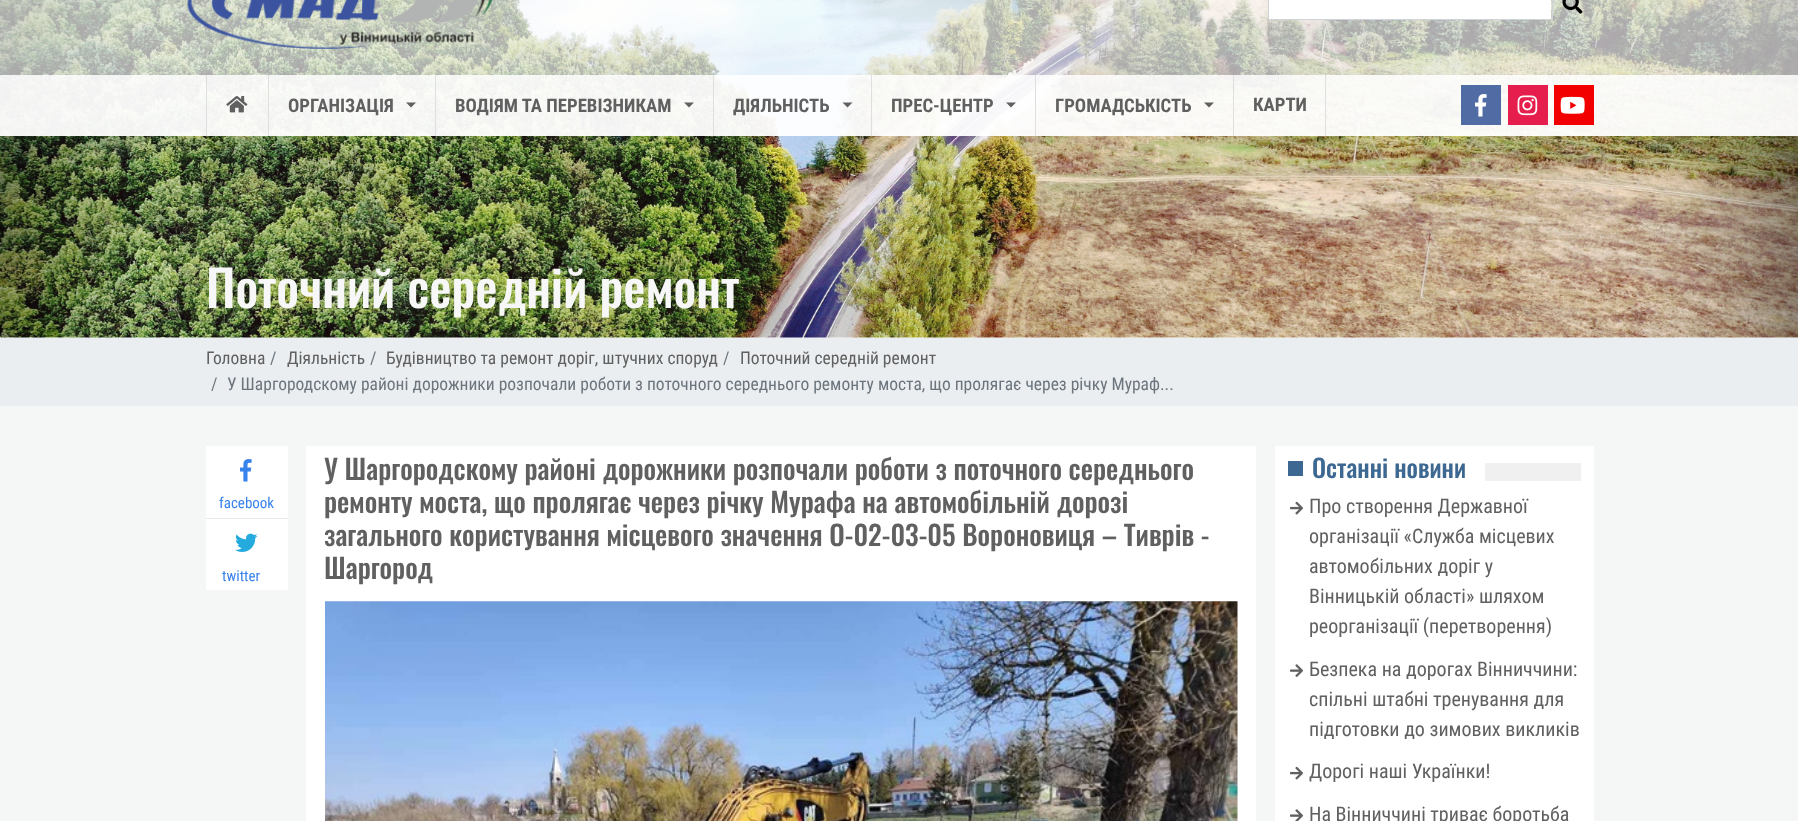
<svg xmlns="http://www.w3.org/2000/svg" width="1798" height="821" viewBox="0 0 1798 821">
  <rect width="100%" height="100%" fill="#f4f7f6"/>
  <image x="0" y="0" width="1798" height="338" href="img7.png"/>
  <rect x="0" y="0" width="1798" height="75" fill="#ffffff" fill-opacity="0.65"/>
  <image x="187" y="0" width="306" height="49" href="img1.png"/>
  <rect x="1269" y="0" width="282" height="19" fill="#ffffff"/>
  <rect x="1268.5" y="-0.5" width="284" height="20" fill="none" stroke="#ced4da"/>
  <image x="1562" y="0" width="21" height="14" href="img2.png"/>
  <rect x="0" y="75" width="1798" height="61" fill="#ffffff" fill-opacity="0.95"/>
  <rect x="206" y="75" width="1" height="61" fill="#dfdfdf"/>
  <image x="226" y="96" width="22" height="17" href="img3.png"/>
  <rect x="268" y="75" width="1" height="61" fill="#dfdfdf"/>
  <text x="288" y="112" font-family="Roboto Condensed" font-size="18.75" font-weight="bold" fill="#606060">ОРГАНІЗАЦІЯ</text>
  <path d="M406 102.5H416L411 107.5Z" fill="#606060"/>
  <rect x="435" y="75" width="1" height="61" fill="#dfdfdf"/>
  <text x="455" y="112" font-family="Roboto Condensed" font-size="18.75" font-weight="bold" fill="#606060">ВОДІЯМ ТА ПЕРЕВІЗНИКАМ</text>
  <path d="M684 102.5H694L689 107.5Z" fill="#606060"/>
  <rect x="713" y="75" width="1" height="61" fill="#dfdfdf"/>
  <text x="733" y="112" font-family="Roboto Condensed" font-size="18.75" font-weight="bold" fill="#606060">ДІЯЛЬНІСТЬ</text>
  <path d="M842.5 102.5H852.5L847.5 107.5Z" fill="#606060"/>
  <rect x="871" y="75" width="1" height="61" fill="#dfdfdf"/>
  <text x="891" y="112" font-family="Roboto Condensed" font-size="18.75" font-weight="bold" fill="#606060">ПРЕС-ЦЕНТР</text>
  <path d="M1006 102.5H1016L1011 107.5Z" fill="#606060"/>
  <rect x="1035" y="75" width="1" height="61" fill="#dfdfdf"/>
  <text x="1055" y="112" font-family="Roboto Condensed" font-size="18.75" font-weight="bold" fill="#606060">ГРОМАДСЬКІСТЬ</text>
  <path d="M1204 102.5H1214L1209 107.5Z" fill="#606060"/>
  <rect x="1325" y="75" width="1" height="61" fill="#dfdfdf"/>
  <rect x="1233" y="75" width="1" height="61" fill="#dfdfdf"/>
  <text x="1253" y="111" font-family="Roboto Condensed" font-size="18.75" font-weight="bold" fill="#606060">КАРТИ</text>
  <rect x="1461" y="85" width="40" height="40" fill="#516ca4"/>
  <image x="1475" y="94" width="12" height="23" href="img4.png"/>
  <rect x="1508" y="85" width="40" height="40" fill="#e61e4e"/>
  <image x="1517" y="95" width="21" height="21" href="img5.png"/>
  <rect x="1554" y="85" width="40" height="40" fill="#f20000"/>
  <image x="1560" y="96" width="25" height="18" href="img6.png"/>
  <text x="206" y="308" font-family="Oswald" font-size="50" font-weight="500" fill="#f7f7f7">Поточний середній ремонт</text>
  <rect x="206" y="446" width="82" height="144" fill="#ffffff"/>
  <rect x="206" y="518" width="82" height="1" fill="#eaeaea"/>
  <image x="240" y="459" width="12" height="23" href="img8.png"/>
  <text x="219" y="508" font-family="Roboto Condensed" font-size="15" fill="#3882ec">facebook</text>
  <image x="235" y="533" width="23" height="19" href="img9.png"/>
  <text x="222" y="581" font-family="Roboto Condensed" font-size="15" fill="#3882ec">twitter</text>
  <rect x="306" y="446" width="950" height="375" fill="#ffffff"/>
  <text x="324" y="480" font-family="Oswald" font-size="27.5" font-weight="500" fill="#606060">У Шаргородскому районі дорожники розпочали роботи з поточного середнього</text>
  <text x="324" y="513" font-family="Oswald" font-size="27.5" font-weight="500" fill="#606060">ремонту моста, що пролягає через річку Мурафа на автомобільній дорозі</text>
  <text x="324" y="546" font-family="Oswald" font-size="27.5" font-weight="500" fill="#606060">загального користування місцевого значення О-02-03-05 Вороновиця – Тиврів -</text>
  <text x="324" y="579" font-family="Oswald" font-size="27.5" font-weight="500" fill="#606060">Шаргород</text>
  <image x="325" y="601" width="913" height="220" href="img10.png"/>
  <rect x="1275" y="446" width="319" height="375" fill="#ffffff"/>
  <rect x="1288" y="461" width="15" height="15" fill="#3d6891"/>
  <text x="1312" y="478" font-family="Oswald" font-size="25" font-weight="500" fill="#3d6891">Останні новини</text>
  <rect x="1485" y="463" width="96" height="18" fill="#f0f0f0"/>
  <image x="1290" y="501" width="14" height="14" href="img11.png"/>
  <text x="1309" y="513" font-family="Roboto Condensed" font-size="20" fill="#606060">Про створення Державної</text>
  <text x="1309" y="543" font-family="Roboto Condensed" font-size="20" fill="#606060">організації «Служба місцевих</text>
  <text x="1309" y="573" font-family="Roboto Condensed" font-size="20" fill="#606060">автомобільних доріг у</text>
  <text x="1309" y="603" font-family="Roboto Condensed" font-size="20" fill="#606060">Вінницькій області» шляхом</text>
  <text x="1309" y="633" font-family="Roboto Condensed" font-size="20" fill="#606060">реорганізації (перетворення)</text>
  <image x="1290" y="664" width="14" height="13" href="img12.png"/>
  <text x="1309" y="676" font-family="Roboto Condensed" font-size="20" fill="#606060">Безпека на дорогах Вінниччини:</text>
  <text x="1309" y="706" font-family="Roboto Condensed" font-size="20" fill="#606060">спільні штабні тренування для</text>
  <text x="1309" y="736" font-family="Roboto Condensed" font-size="20" fill="#606060">підготовки до зимових викликів</text>
  <image x="1290" y="766" width="14" height="14" href="img11.png"/>
  <text x="1309" y="778" font-family="Roboto Condensed" font-size="20" fill="#606060">Дорогі наші Українки!</text>
  <image x="1290" y="809" width="14" height="12" href="img13.png"/>
  <text x="1309" y="821" font-family="Roboto Condensed" font-size="20" fill="#606060">На Вінниччині триває боротьба</text>
  <rect x="0" y="338" width="1798" height="68" fill="#ebeef0"/>
  <text x="206" y="364" font-family="Roboto Condensed" font-size="17.5" fill="#606060">Головна</text>
  <text x="270" y="364" font-family="Roboto Condensed" font-size="17.5" fill="#6c757d">/</text>
  <text x="287" y="364" font-family="Roboto Condensed" font-size="17.5" fill="#606060">Діяльність</text>
  <text x="370" y="364" font-family="Roboto Condensed" font-size="17.5" fill="#6c757d">/</text>
  <text x="386" y="364" font-family="Roboto Condensed" font-size="17.5" fill="#606060">Будівництво та ремонт доріг, штучних споруд</text>
  <text x="723" y="364" font-family="Roboto Condensed" font-size="17.5" fill="#6c757d">/</text>
  <text x="740" y="364" font-family="Roboto Condensed" font-size="17.5" fill="#606060">Поточний середній ремонт</text>
  <text x="211" y="390" font-family="Roboto Condensed" font-size="17.5" fill="#6c757d">/</text>
  <text x="227" y="390" font-family="Roboto Condensed" font-size="17.5" fill="#6c757d">У Шаргородскому районі дорожники розпочали роботи з поточного середнього ремонту моста, що пролягає через річку Мураф...</text>
</svg>
